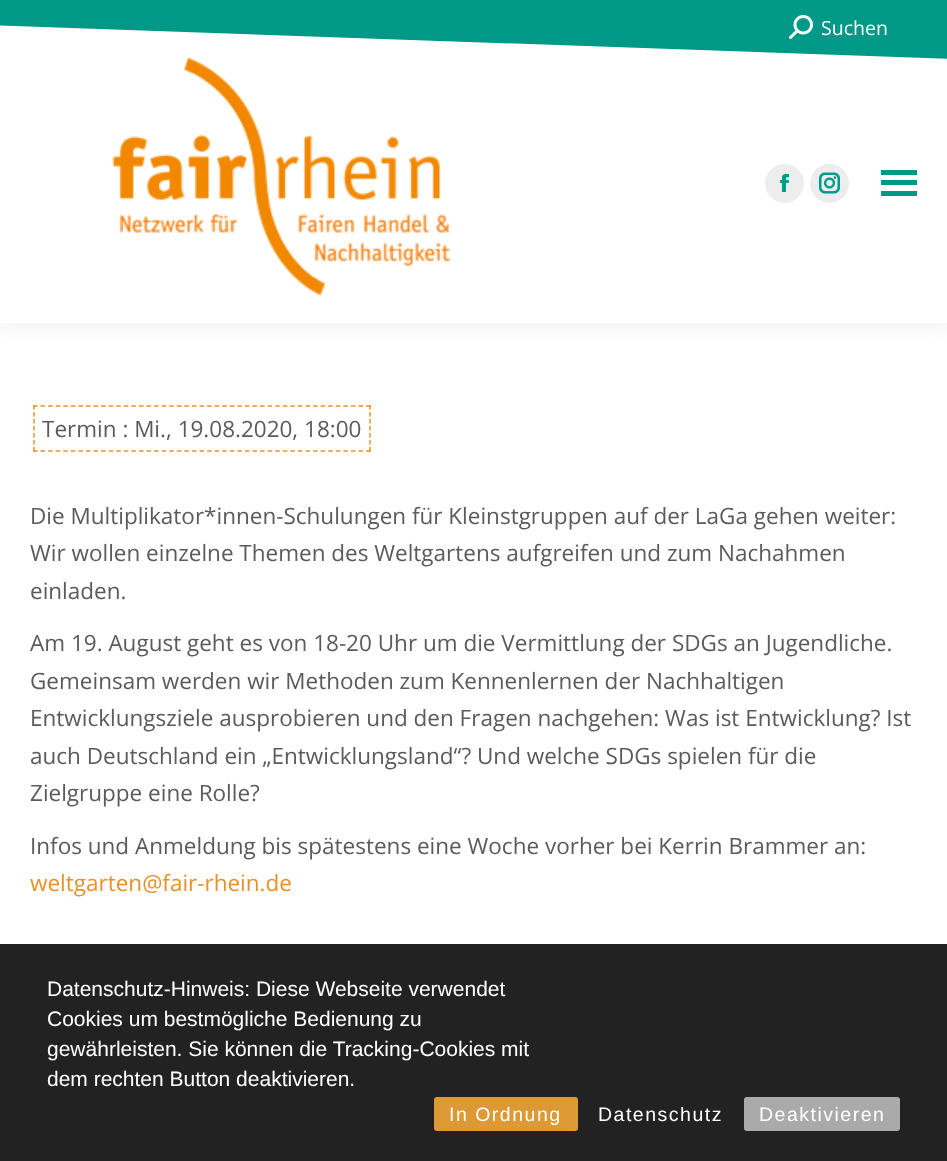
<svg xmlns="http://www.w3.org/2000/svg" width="947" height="1161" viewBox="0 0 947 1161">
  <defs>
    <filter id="blur1" x="-50%" y="-200%" width="200%" height="500%"><feGaussianBlur stdDeviation="11"/></filter>
  </defs>
  <rect width="100%" height="100%" fill="#ffffff"/>
  <rect x="-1" y="-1" width="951" height="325" fill="#000000" fill-opacity="0.07" filter="url(#blur1)"/>
  <rect x="0" y="25" width="947" height="298" fill="#ffffff"/>
  <path d="M-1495-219L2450-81L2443 111L-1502-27Z" fill="#009988"/>
  <image x="789" y="15" width="24" height="24" href="img1.png"/>
  <text x="821" y="35" font-family="Open Sans" font-size="19.5" fill="#ffffff">Suchen</text>
  <image x="112" y="57" width="339" height="239" href="img2.png"/>
  <circle cx="784.5" cy="183.5" r="19.5" fill="#ededed"/>
  <image x="779" y="174" width="11" height="18" href="img3.png"/>
  <circle cx="829.5" cy="183.5" r="19.5" fill="#ededed"/>
  <image x="819" y="172" width="21" height="22" href="img4.png"/>
  <rect x="881" y="170" width="36" height="5" fill="#009988"/>
  <rect x="881" y="180" width="36" height="5" fill="#009988"/>
  <rect x="881" y="191" width="36" height="5" fill="#009988"/>
  <path d="M33 406H370.5" fill="none" stroke="#e8912a" stroke-width="1.5" stroke-dasharray="4.5 3.07"/>
  <path d="M370 405V451.5" fill="none" stroke="#e8912a" stroke-width="1.5" stroke-dasharray="4.5 2.5"/>
  <path d="M33 451H370.5" fill="none" stroke="#e8912a" stroke-width="1.5" stroke-dasharray="4.5 3.07"/>
  <path d="M34 405V451.5" fill="none" stroke="#e8912a" stroke-width="1.5" stroke-dasharray="4.5 2.5"/>
  <text x="42" y="437" font-family="Open Sans" font-size="22.5" fill="#5b5b5b">Termin : Mi., 19.08.2020, 18:00</text>
  <text x="30" y="524" font-family="Open Sans" font-size="22.5" fill="#5b5b5b">Die Multiplikator*innen-Schulungen für Kleinstgruppen auf der LaGa gehen weiter:</text>
  <text x="30" y="561" font-family="Open Sans" font-size="22.5" fill="#5b5b5b">Wir wollen einzelne Themen des Weltgartens aufgreifen und zum Nachahmen</text>
  <text x="30" y="599" font-family="Open Sans" font-size="22.5" fill="#5b5b5b">einladen.</text>
  <text x="30" y="651" font-family="Open Sans" font-size="22.5" fill="#5b5b5b">Am 19. August geht es von 18-20 Uhr um die Vermittlung der SDGs an Jugendliche.</text>
  <text x="30" y="689" font-family="Open Sans" font-size="22.5" fill="#5b5b5b">Gemeinsam werden wir Methoden zum Kennenlernen der Nachhaltigen</text>
  <text x="30" y="726" font-family="Open Sans" font-size="22.5" fill="#5b5b5b">Entwicklungsziele ausprobieren und den Fragen nachgehen: Was ist Entwicklung? Ist</text>
  <text x="30" y="764" font-family="Open Sans" font-size="22.5" fill="#5b5b5b">auch Deutschland ein „Entwicklungsland“? Und welche SDGs spielen für die</text>
  <text x="30" y="801" font-family="Open Sans" font-size="22.5" fill="#5b5b5b">Zielgruppe eine Rolle?</text>
  <text x="30" y="854" font-family="Open Sans" font-size="22.5" fill="#5b5b5b">Infos und Anmeldung bis spätestens eine Woche vorher bei Kerrin Brammer an:</text>
  <text x="30" y="891" font-family="Open Sans" font-size="22.5" fill="#e8912a">weltgarten@fair-rhein.de</text>
  <rect x="0" y="944" width="947" height="217" fill="#222222"/>
  <text x="47" y="996" font-family="Liberation Sans" font-size="21" fill="#ffffff">Datenschutz-Hinweis: Diese Webseite verwendet</text>
  <text x="47" y="1026" font-family="Liberation Sans" font-size="21" fill="#ffffff">Cookies um bestmögliche Bedienung zu</text>
  <text x="47" y="1056" font-family="Liberation Sans" font-size="21" fill="#ffffff">gewährleisten. Sie können die Tracking-Cookies mit</text>
  <text x="47" y="1086" font-family="Liberation Sans" font-size="21" fill="#ffffff">dem rechten Button deaktivieren.</text>
  <rect x="434" y="1097" width="144" height="34" rx="3" fill="#dd9933"/>
  <text x="449" y="1121" font-family="Liberation Sans" font-size="19.5" letter-spacing="1.5" fill="#ffffff">In Ordnung</text>
  <text x="598" y="1121" font-family="Liberation Sans" font-size="19.5" letter-spacing="1.5" fill="#ffffff">Datenschutz</text>
  <rect x="744" y="1097" width="156" height="34" rx="3" fill="#aaaaaa"/>
  <text x="759" y="1121" font-family="Liberation Sans" font-size="19.5" letter-spacing="1.5" fill="#ffffff">Deaktivieren</text>
</svg>
